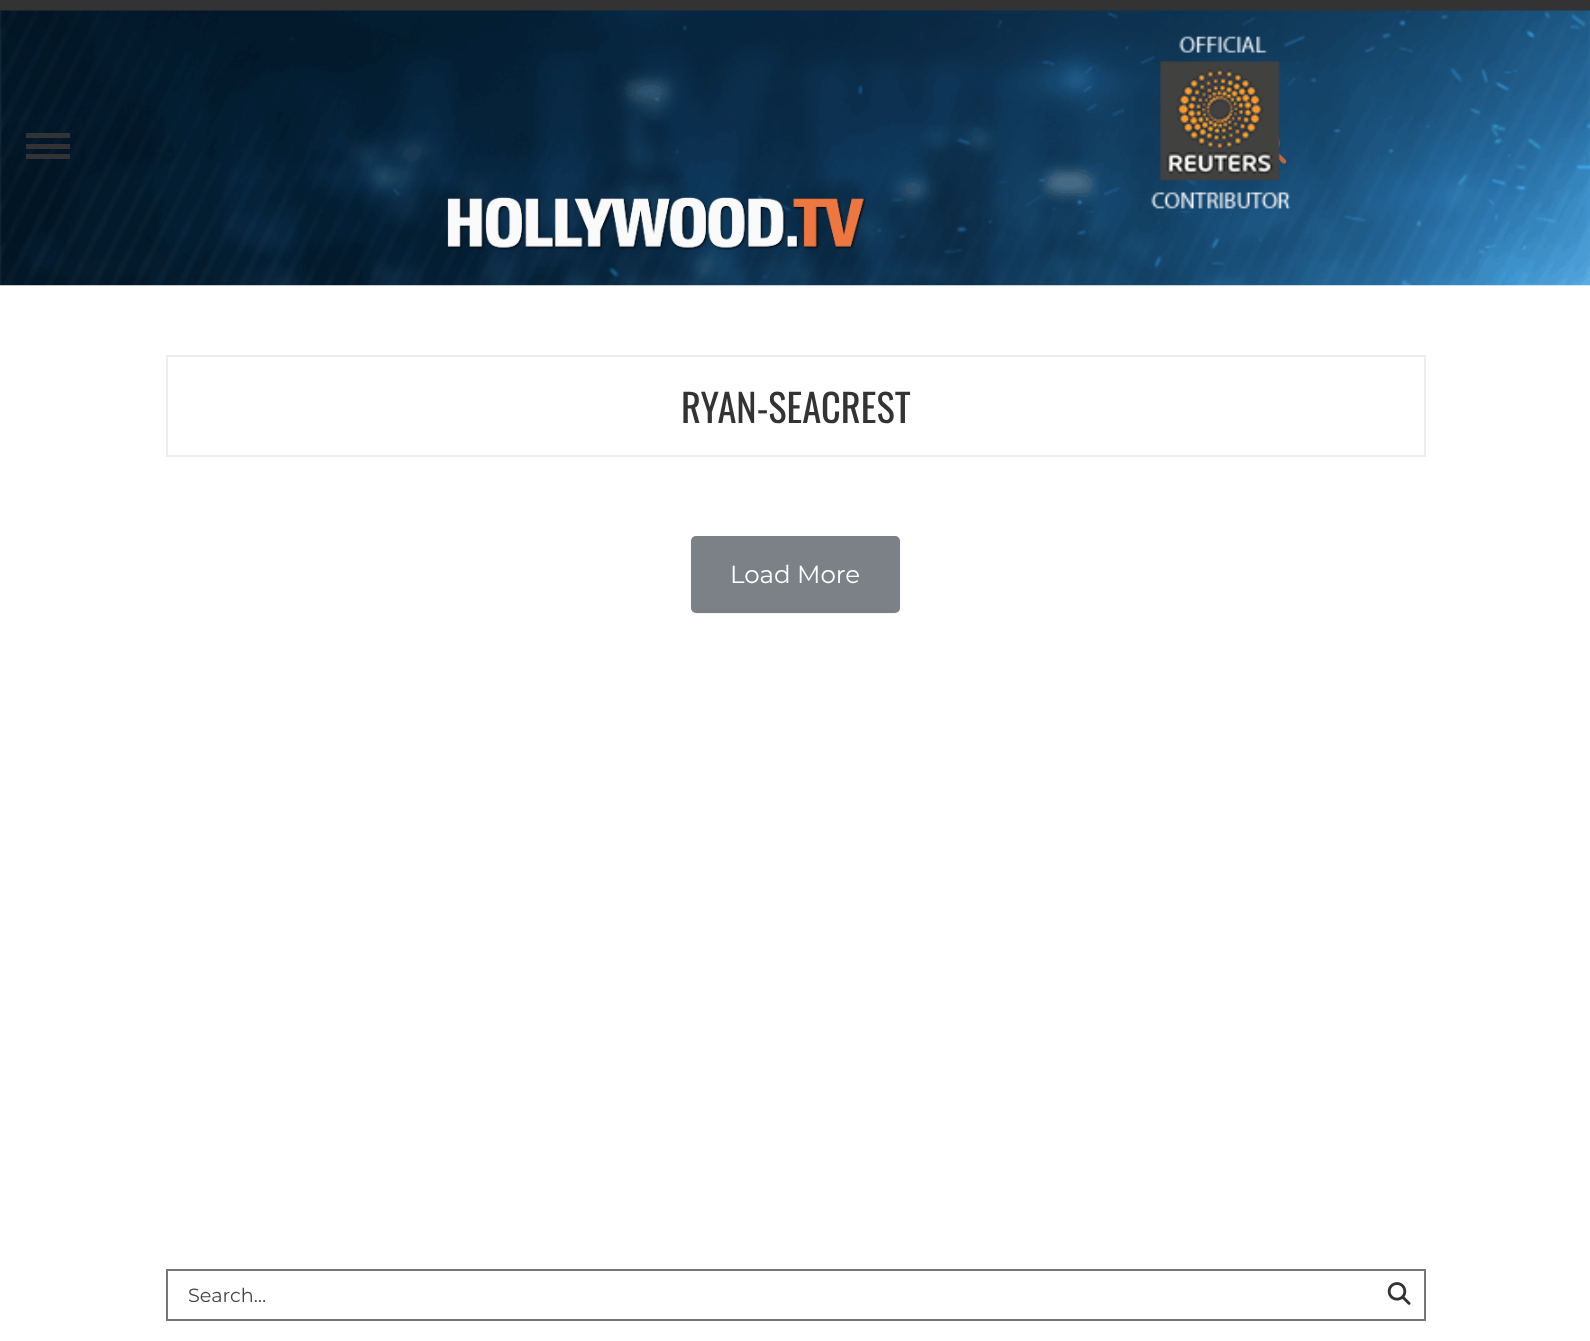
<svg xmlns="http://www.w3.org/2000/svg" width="1590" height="1341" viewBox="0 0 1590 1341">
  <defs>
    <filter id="blur1" x="-50%" y="-200%" width="200%" height="500%"><feGaussianBlur stdDeviation="1"/></filter>
  </defs>
  <rect width="100%" height="100%" fill="#ffffff"/>
  <rect x="0" y="0" width="1590" height="11" fill="#333333"/>
  <image x="0" y="10" width="1590" height="276" href="img1.png"/>
  <rect x="26" y="133" width="44" height="5" fill="#333333"/>
  <rect x="26" y="144" width="44" height="5" fill="#333333"/>
  <rect x="26" y="154" width="44" height="5" fill="#333333"/>
  <image x="1277" y="134" width="10" height="30" href="img4.png"/>
  <image x="1151" y="36" width="140" height="173" href="img2.png"/>
  <image x="447" y="197" width="419" height="53" href="img3.png"/>
  <rect x="167" y="356" width="1258" height="100" fill="none" stroke="#eeeeee" stroke-width="2"/>
  <text x="681" y="423" font-family="Oswald" font-size="38.5" fill="#333333">RYAN-SEACREST</text>
  <rect x="691" y="537" width="209" height="77" rx="5" fill="#000000" fill-opacity="0.05" filter="url(#blur1)"/>
  <rect x="691" y="536" width="209" height="77" rx="5" fill="#7c8087"/>
  <text x="730" y="583" font-family="Montserrat" font-size="24.5" font-weight="100" fill="#ffffff">Load More</text>
  <rect x="167" y="1270" width="1258" height="50" fill="none" stroke="#777777" stroke-width="2"/>
  <text x="188" y="1302" font-family="Montserrat" font-size="19.25" font-weight="100" fill="#444444">Search…</text>
  <image x="1387" y="1282" width="24" height="23" href="img5.png"/>
</svg>
